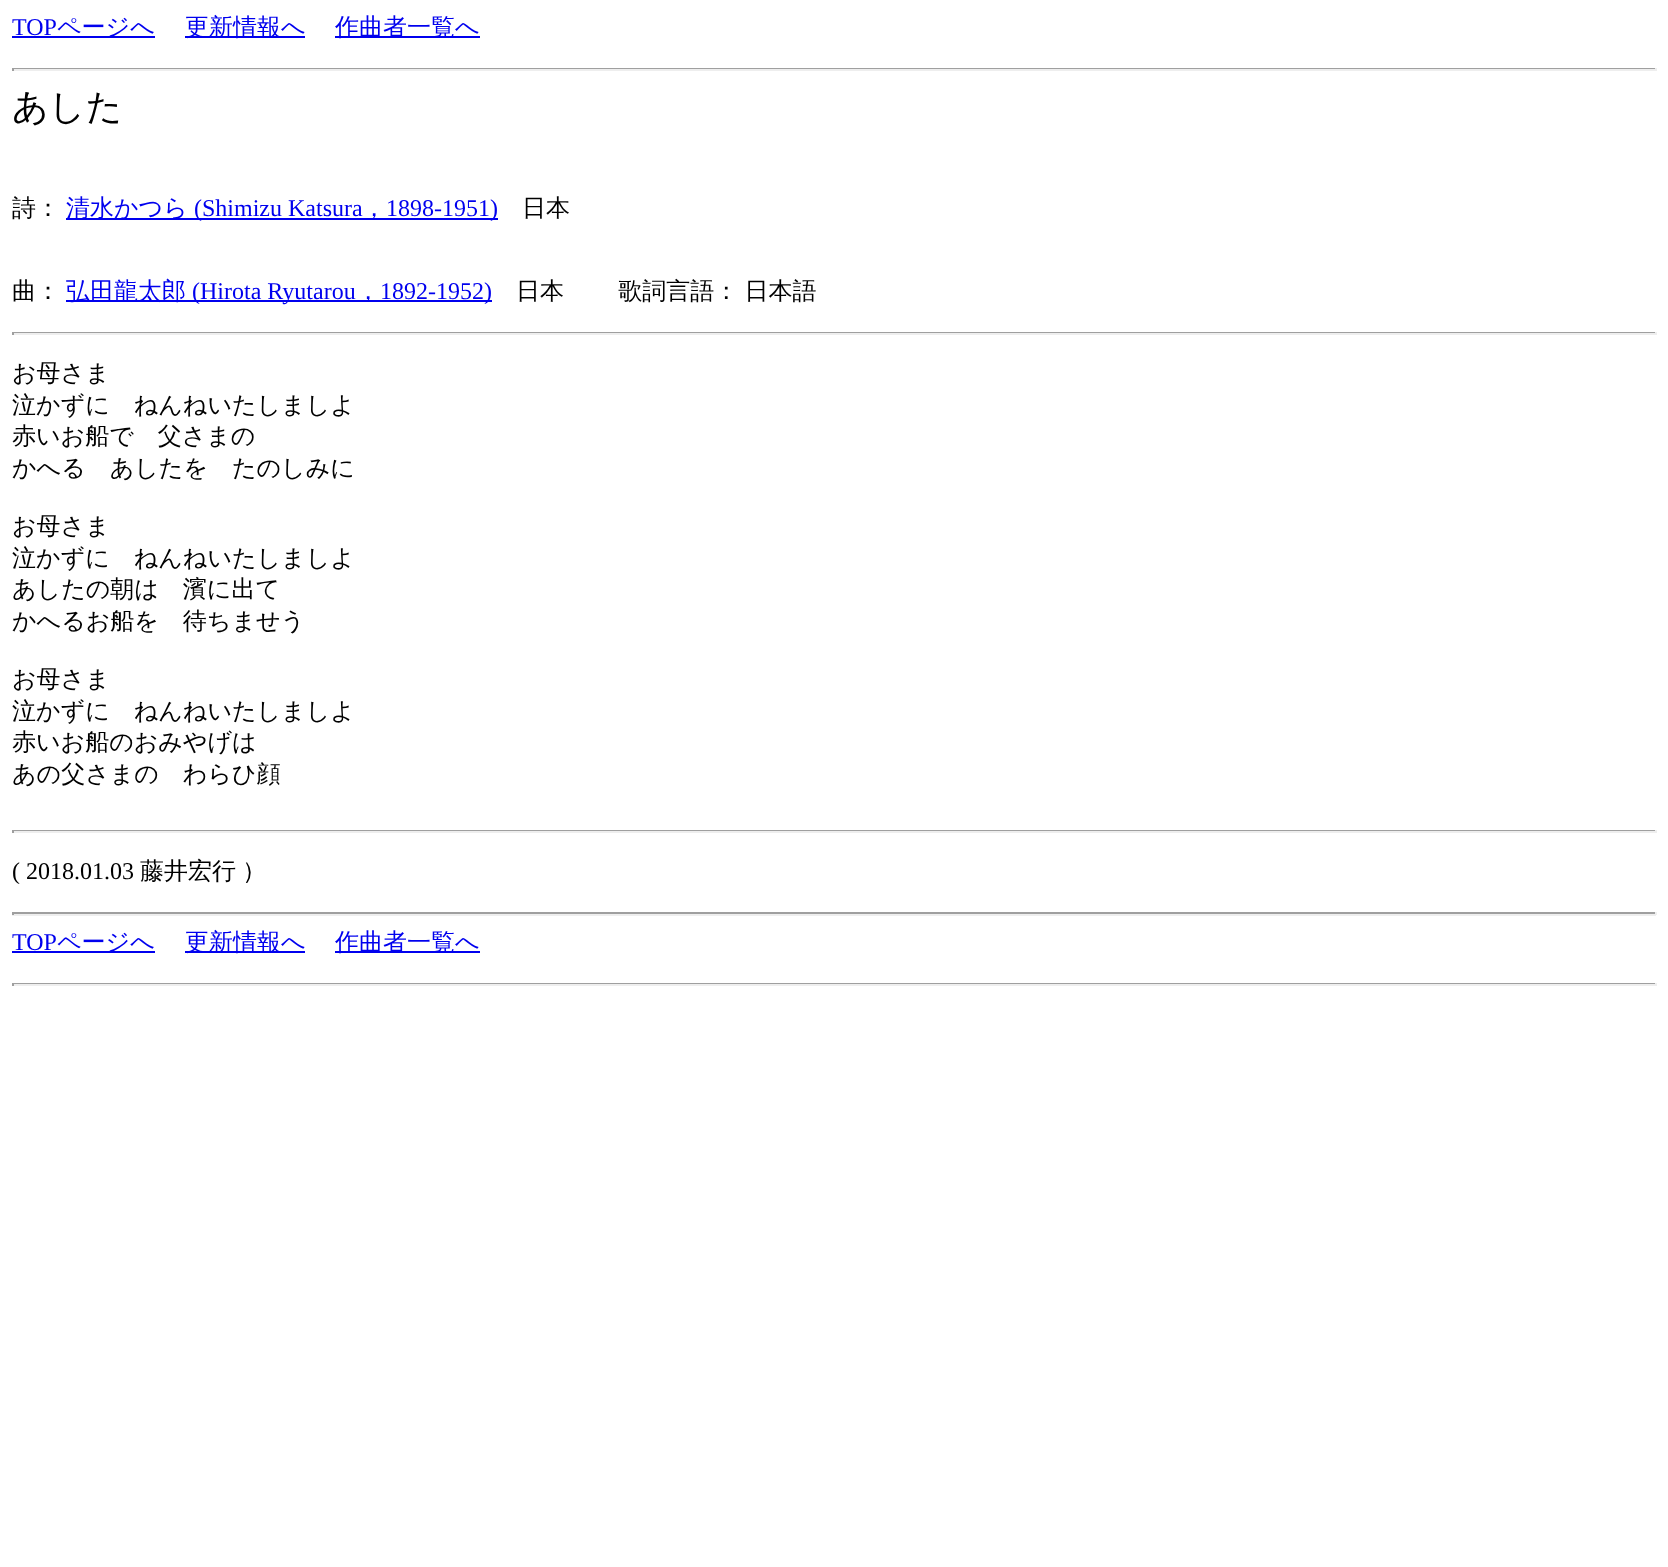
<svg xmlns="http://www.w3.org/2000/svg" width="1668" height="1567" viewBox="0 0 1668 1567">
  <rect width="100%" height="100%" fill="#ffffff"/>
  <text x="12" y="35" font-family="Liberation Serif" font-size="24" fill="#0000ee">TOP</text>
  <rect x="12" y="36" width="143" height="2" fill="#0000ee"/>
  <text x="57" y="35" font-family="WenQuanYi Zen Hei" font-size="24" font-weight="500" fill="#0000ee">ページへ</text>
  <rect x="185" y="36" width="120" height="2" fill="#0000ee"/>
  <text x="185" y="35" font-family="WenQuanYi Zen Hei" font-size="24" font-weight="500" fill="#0000ee">更新情報へ</text>
  <rect x="335" y="36" width="145" height="2" fill="#0000ee"/>
  <text x="335" y="35" font-family="WenQuanYi Zen Hei" font-size="24" font-weight="500" fill="#0000ee">作曲者一覧へ</text>
  <rect x="12" y="68" width="1644" height="1" fill="#9f9f9f"/>
  <rect x="1655" y="68" width="2" height="3" fill="#eeeeee"/>
  <rect x="12" y="69" width="1644" height="2" fill="#eeeeee"/>
  <rect x="12" y="68" width="2" height="3" fill="#9f9f9f"/>
  <text x="12" y="119" font-family="WenQuanYi Zen Hei" font-size="36" font-weight="500" fill="#000000">あした</text>
  <text x="12" y="216" font-family="WenQuanYi Zen Hei" font-size="24" font-weight="500" fill="#000000">詩：</text>
  <rect x="66" y="218" width="432" height="2" fill="#0000ee"/>
  <text x="66" y="216" font-family="WenQuanYi Zen Hei" font-size="24" font-weight="500" fill="#0000ee">清水かつら</text>
  <text x="194" y="216" font-family="Liberation Serif" font-size="24" fill="#0000ee">(Shimizu Katsura</text>
  <text x="362" y="216" font-family="WenQuanYi Zen Hei" font-size="24" font-weight="500" fill="#0000ee">，</text>
  <text x="386" y="216" font-family="Liberation Serif" font-size="24" fill="#0000ee">1898-1951)</text>
  <text x="522" y="216" font-family="WenQuanYi Zen Hei" font-size="24" font-weight="500" fill="#000000">日本</text>
  <text x="12" y="299" font-family="WenQuanYi Zen Hei" font-size="24" font-weight="500" fill="#000000">曲：</text>
  <rect x="66" y="300" width="426" height="2" fill="#0000ee"/>
  <text x="66" y="299" font-family="WenQuanYi Zen Hei" font-size="24" font-weight="500" fill="#0000ee">弘田龍太郎</text>
  <text x="192" y="299" font-family="Liberation Serif" font-size="24" fill="#0000ee">(Hirota Ryutarou</text>
  <text x="356" y="299" font-family="WenQuanYi Zen Hei" font-size="24" font-weight="500" fill="#0000ee">，</text>
  <text x="380" y="299" font-family="Liberation Serif" font-size="24" fill="#0000ee">1892-1952)</text>
  <text x="516" y="299" word-spacing="-1" font-family="WenQuanYi Zen Hei" font-size="24" font-weight="500" fill="#000000">日本 　　歌詞言語： 日本語</text>
  <rect x="12" y="332" width="1644" height="1" fill="#9f9f9f"/>
  <rect x="1655" y="332" width="2" height="3" fill="#eeeeee"/>
  <rect x="12" y="333" width="1644" height="2" fill="#eeeeee"/>
  <rect x="12" y="332" width="2" height="3" fill="#9f9f9f"/>
  <text x="12" y="381" font-family="WenQuanYi Zen Hei" font-size="24" font-weight="500" fill="#000000">お母さま</text>
  <text x="12" y="413" font-family="WenQuanYi Zen Hei" font-size="24" font-weight="500" fill="#000000">泣かずに　ねんねいたしましよ</text>
  <text x="12" y="444" font-family="WenQuanYi Zen Hei" font-size="24" font-weight="500" fill="#000000">赤いお船で　父さまの</text>
  <text x="12" y="476" font-family="WenQuanYi Zen Hei" font-size="24" font-weight="500" fill="#000000">かへる　あしたを　たのしみに</text>
  <text x="12" y="534" font-family="WenQuanYi Zen Hei" font-size="24" font-weight="500" fill="#000000">お母さま</text>
  <text x="12" y="566" font-family="WenQuanYi Zen Hei" font-size="24" font-weight="500" fill="#000000">泣かずに　ねんねいたしましよ</text>
  <text x="12" y="597" font-family="WenQuanYi Zen Hei" font-size="24" font-weight="500" fill="#000000">あしたの朝は　濱に出て</text>
  <text x="12" y="629" font-family="WenQuanYi Zen Hei" font-size="24" font-weight="500" fill="#000000">かへるお船を　待ちませう</text>
  <text x="12" y="687" font-family="WenQuanYi Zen Hei" font-size="24" font-weight="500" fill="#000000">お母さま</text>
  <text x="12" y="719" font-family="WenQuanYi Zen Hei" font-size="24" font-weight="500" fill="#000000">泣かずに　ねんねいたしましよ</text>
  <text x="12" y="750" font-family="WenQuanYi Zen Hei" font-size="24" font-weight="500" fill="#000000">赤いお船のおみやげは</text>
  <text x="12" y="782" font-family="WenQuanYi Zen Hei" font-size="24" font-weight="500" fill="#000000">あの父さまの　わらひ顔</text>
  <rect x="12" y="830" width="1644" height="1" fill="#9f9f9f"/>
  <rect x="1655" y="830" width="2" height="3" fill="#eeeeee"/>
  <rect x="12" y="831" width="1644" height="2" fill="#eeeeee"/>
  <rect x="12" y="830" width="2" height="3" fill="#9f9f9f"/>
  <text x="12" y="879" font-family="Liberation Serif" font-size="24" fill="#000000">( 2018.01.03</text>
  <text x="140" y="879" word-spacing="-1" font-family="WenQuanYi Zen Hei" font-size="24" font-weight="500" fill="#000000">藤井宏行 ）</text>
  <rect x="12" y="912" width="1644" height="2" fill="#9f9f9f"/>
  <rect x="1655" y="912" width="2" height="3" fill="#eeeeee"/>
  <rect x="12" y="914" width="1644" height="2" fill="#eeeeee"/>
  <rect x="12" y="912" width="2" height="3" fill="#9f9f9f"/>
  <text x="12" y="950" font-family="Liberation Serif" font-size="24" fill="#0000ee">TOP</text>
  <rect x="12" y="951" width="143" height="2" fill="#0000ee"/>
  <text x="57" y="950" font-family="WenQuanYi Zen Hei" font-size="24" font-weight="500" fill="#0000ee">ページへ</text>
  <rect x="185" y="951" width="120" height="2" fill="#0000ee"/>
  <text x="185" y="950" font-family="WenQuanYi Zen Hei" font-size="24" font-weight="500" fill="#0000ee">更新情報へ</text>
  <rect x="335" y="951" width="145" height="2" fill="#0000ee"/>
  <text x="335" y="950" font-family="WenQuanYi Zen Hei" font-size="24" font-weight="500" fill="#0000ee">作曲者一覧へ</text>
  <rect x="12" y="983" width="1644" height="1" fill="#9f9f9f"/>
  <rect x="1655" y="983" width="2" height="3" fill="#eeeeee"/>
  <rect x="12" y="984" width="1644" height="2" fill="#eeeeee"/>
  <rect x="12" y="983" width="2" height="3" fill="#9f9f9f"/>
</svg>
